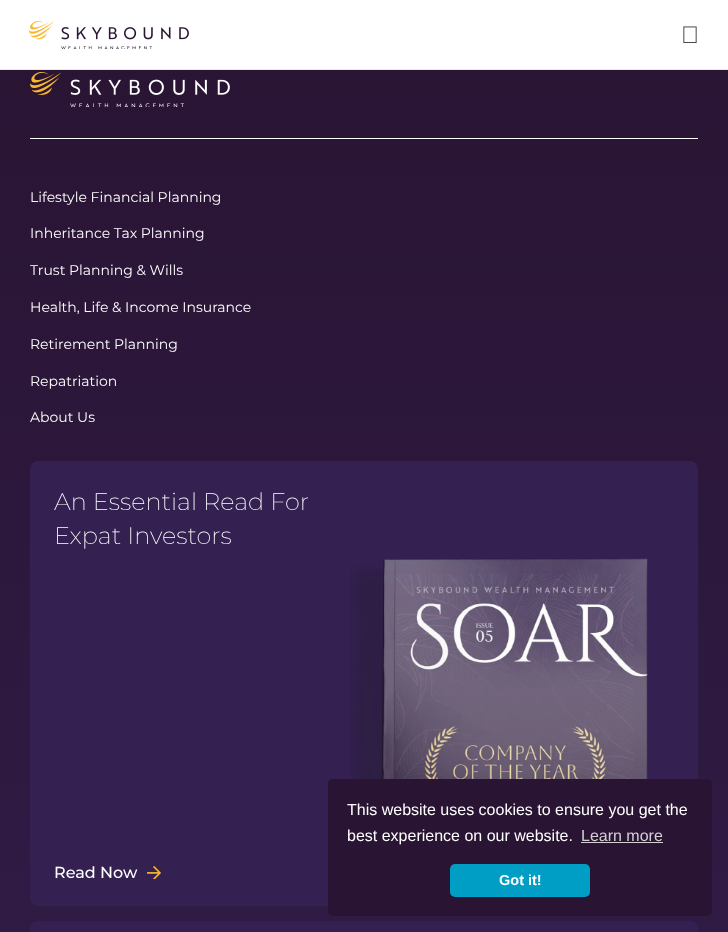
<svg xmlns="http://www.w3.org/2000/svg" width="728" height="932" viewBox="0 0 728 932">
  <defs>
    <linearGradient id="g1" gradientUnits="userSpaceOnUse" x1="364" y1="2" x2="364" y2="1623"><stop offset="0" stop-color="#291433"/><stop offset="1" stop-color="#342051"/></linearGradient>
  </defs>
  <rect width="100%" height="100%" fill="#ffffff"/>
  <image x="29" y="21" width="160" height="28" href="img1.png"/>
  <image x="683" y="26" width="14" height="17" href="img2.png"/>
  <rect x="0" y="69" width="728" height="1" fill="#ebebeb"/>
  <rect x="0" y="70" width="728" height="862" fill="url(#g1)"/>
  <image x="30" y="72" width="200" height="35" href="img3.png"/>
  <rect x="30" y="138" width="668" height="1" fill="#ffffff"/>
  <text x="30" y="202" font-family="Montserrat" font-size="14" fill="#ffffff">Lifestyle Financial Planning</text>
  <text x="30" y="238" font-family="Montserrat" font-size="14" fill="#ffffff">Inheritance Tax Planning</text>
  <text x="30" y="275" font-family="Montserrat" font-size="14" fill="#ffffff">Trust Planning &amp; Wills</text>
  <text x="30" y="312" font-family="Montserrat" font-size="14" fill="#ffffff">Health, Life &amp; Income Insurance</text>
  <text x="30" y="349" font-family="Montserrat" font-size="14" fill="#ffffff">Retirement Planning</text>
  <text x="30" y="386" font-family="Montserrat" font-size="14" fill="#ffffff">Repatriation</text>
  <text x="30" y="422" font-family="Montserrat" font-size="14" fill="#ffffff">About Us</text>
  <rect x="30" y="461" width="668" height="445" rx="8" fill="#342051"/>
  <text x="54" y="510" font-family="Montserrat" font-size="24" font-weight="200" fill="#ffffff">An Essential Read For</text>
  <text x="54" y="544" font-family="Montserrat" font-size="24" font-weight="200" fill="#ffffff">Expat Investors</text>
  <text x="54" y="878" font-family="Montserrat" font-size="16" font-weight="500" fill="#ffffff">Read Now</text>
  <image x="147" y="866" width="14" height="13" href="img4.png"/>
  <image x="350" y="558" width="298" height="221" href="img5.png"/>
  <rect x="30" y="921" width="668" height="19" rx="8" fill="#342051"/>
  <rect x="328" y="779" width="384" height="137" rx="5" fill="#291433"/>
  <text x="347" y="815" font-family="Liberation Sans" font-size="16" fill="#ffffff">This website uses cookies to ensure you get the</text>
  <text x="347" y="841" font-family="Liberation Sans" font-size="16" fill="#ffffff">best experience on our website.</text>
  <text x="581" y="841" font-family="Liberation Sans" font-size="16" fill="#d4d0d6">Learn more</text>
  <rect x="581" y="842" width="82" height="1" fill="#d4d0d6"/>
  <rect x="450" y="864" width="140" height="33" rx="5" fill="#009dc5"/>
  <text x="499" y="885" font-family="Liberation Sans" font-size="14.5" font-weight="bold" fill="#ffffff">Got it!</text>
</svg>
